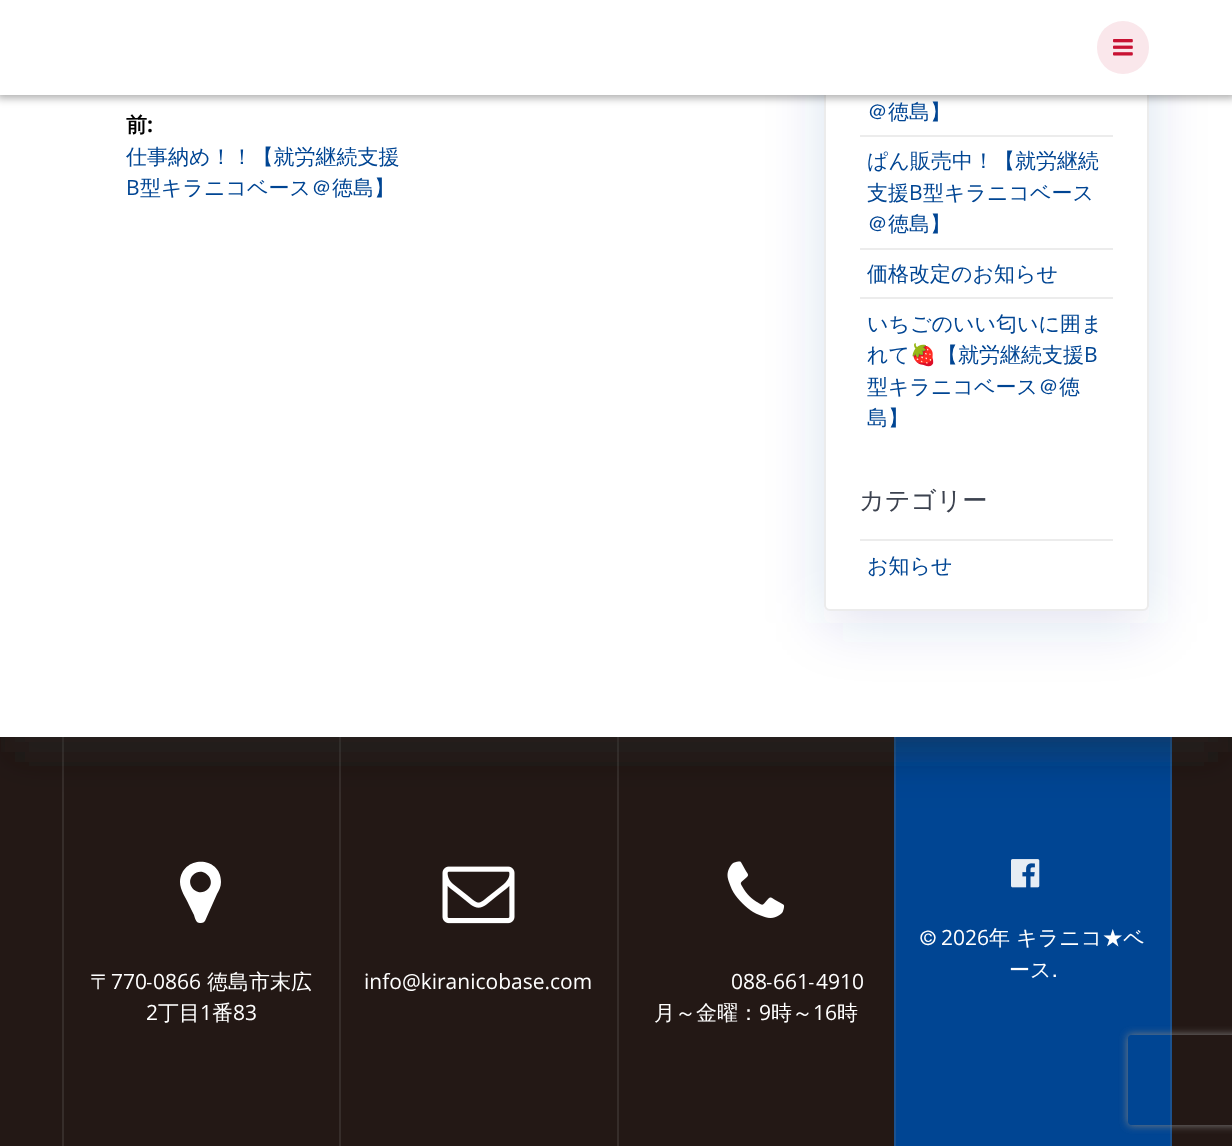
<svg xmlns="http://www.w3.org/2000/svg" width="1232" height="1146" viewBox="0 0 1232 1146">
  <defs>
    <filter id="blur1" x="-50%" y="-200%" width="200%" height="500%"><feGaussianBlur stdDeviation="22.5"/></filter>
    <filter id="blur2" x="-50%" y="-200%" width="200%" height="500%"><feGaussianBlur stdDeviation="15"/></filter>
    <filter id="blur3" x="-50%" y="-200%" width="200%" height="500%"><feGaussianBlur stdDeviation="29.5"/></filter>
    <filter id="blur4" x="-50%" y="-200%" width="200%" height="500%"><feGaussianBlur stdDeviation="4"/></filter>
    <clipPath id="clip1"><path d="M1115 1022H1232V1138H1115ZM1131 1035H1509C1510.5 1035 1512 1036.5 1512 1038V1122C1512 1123.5 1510.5 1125 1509 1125H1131C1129.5 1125 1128 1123.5 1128 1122V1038C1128 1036.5 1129.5 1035 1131 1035Z" clip-rule="evenodd"/></clipPath>
  </defs>
  <rect width="100%" height="100%" fill="#231815"/>
  <rect x="896" y="737" width="274" height="409" fill="#004593"/>
  <rect x="1170" y="737" width="2" height="409" fill="#1a518f"/>
  <rect x="894" y="737" width="2" height="409" fill="#1a518f"/>
  <rect x="62" y="737" width="2" height="409" fill="#362d2a"/>
  <rect x="339" y="737" width="2" height="409" fill="#362d2a"/>
  <rect x="617" y="737" width="2" height="409" fill="#362d2a"/>
  <rect x="0" y="-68" width="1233" height="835" fill="#000000" fill-opacity="0.08" filter="url(#blur1)"/>
  <rect x="15" y="-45" width="1203" height="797" fill="#313439" fill-opacity="0.3" filter="url(#blur2)"/>
  <rect x="0" y="95" width="1232" height="642" fill="#ffffff"/>
  <rect x="824" y="-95" width="325" height="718" rx="6" fill="#234598" fill-opacity="0.15" filter="url(#blur3)"/>
  <rect x="825" y="-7" width="323" height="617" rx="5" fill="#ffffff" stroke="#ececec" stroke-width="2"/>
  <rect x="-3" y="-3" width="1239" height="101" fill="#000000" fill-opacity="0.33" filter="url(#blur4)"/>
  <rect x="0" y="0" width="1232" height="95" fill="#ffffff"/>
  <rect x="1097" y="21" width="52" height="53" rx="26" fill="#fae7eb"/>
  <image x="1113" y="39" width="20" height="17" href="img1.png"/>
  <text x="126" y="132" font-family="WenQuanYi Zen Hei" font-size="21" font-weight="bold" fill="#000000">前</text>
  <text x="147" y="132" font-family="Open Sans" font-size="21" font-weight="bold" fill="#000000">:</text>
  <text x="126" y="164" font-family="WenQuanYi Zen Hei" font-size="21" font-weight="500" fill="#004593">仕事納め！！【就労継続支援</text>
  <text x="126" y="195" font-family="Open Sans" font-size="21" fill="#004593">B</text>
  <text x="140" y="195" font-family="WenQuanYi Zen Hei" font-size="21" font-weight="500" fill="#004593">型キラニコベース＠徳島】</text>
  <text x="867" y="119" font-family="WenQuanYi Zen Hei" font-size="21" font-weight="500" fill="#004593">＠徳島】</text>
  <rect x="860" y="135" width="253" height="2" fill="#ececec"/>
  <text x="867" y="168" font-family="WenQuanYi Zen Hei" font-size="21" font-weight="500" fill="#004593">ぱん販売中！【就労継続</text>
  <text x="867" y="200" font-family="WenQuanYi Zen Hei" font-size="21" font-weight="500" fill="#004593">支援</text>
  <text x="909" y="200" font-family="Open Sans" font-size="21" fill="#004593">B</text>
  <text x="923" y="200" font-family="WenQuanYi Zen Hei" font-size="21" font-weight="500" fill="#004593">型キラニコベース</text>
  <text x="867" y="231" font-family="WenQuanYi Zen Hei" font-size="21" font-weight="500" fill="#004593">＠徳島】</text>
  <rect x="860" y="248" width="253" height="2" fill="#ececec"/>
  <text x="867" y="281" font-family="WenQuanYi Zen Hei" font-size="21" font-weight="500" fill="#004593">価格改定のお知らせ</text>
  <rect x="860" y="297" width="253" height="2" fill="#ececec"/>
  <text x="867" y="331" font-family="WenQuanYi Zen Hei" font-size="21" font-weight="500" fill="#004593">いちごのいい匂いに囲ま</text>
  <text x="867" y="362" font-family="WenQuanYi Zen Hei" font-size="21" font-weight="500" fill="#004593">れて</text>
  <text x="910" y="362" font-family="Noto Color Emoji" font-size="21" fill="#004593">🍓</text>
  <text x="937" y="362" font-family="WenQuanYi Zen Hei" font-size="21" font-weight="500" fill="#004593">【就労継続支援</text>
  <text x="1084" y="362" font-family="Open Sans" font-size="21" fill="#004593">B</text>
  <text x="867" y="394" font-family="WenQuanYi Zen Hei" font-size="21" font-weight="500" fill="#004593">型キラニコベース＠徳</text>
  <text x="867" y="425" font-family="WenQuanYi Zen Hei" font-size="21" font-weight="500" fill="#004593">島】</text>
  <text x="859" y="509" font-family="WenQuanYi Zen Hei" font-size="25.25" font-weight="500" fill="#3c424f">カテゴリー</text>
  <rect x="860" y="539" width="253" height="2" fill="#ececec"/>
  <text x="867" y="573" font-family="WenQuanYi Zen Hei" font-size="21" font-weight="500" fill="#004593">お知らせ</text>
  <image x="1011" y="859" width="29" height="29" href="img2.png"/>
  <text x="920" y="945" font-family="WenQuanYi Zen Hei" font-size="21" font-weight="500" fill="#ffffff">©</text>
  <text x="941" y="945" font-family="Open Sans" font-size="21" fill="#ffffff">2026</text>
  <text x="989" y="945" font-family="WenQuanYi Zen Hei" font-size="21" font-weight="500" fill="#ffffff">年 キラニコ★ベ</text>
  <text x="1009" y="977" font-family="WenQuanYi Zen Hei" font-size="21" font-weight="500" fill="#ffffff">ース.</text>
  <path d="M208 889C217 880 203 865 193 875C184 884 198 899 208 889ZM221 882C221 887 219 890 217 894L205 921C204 922 203 923 201 923C196 924 195 918 194 915L189 905C186 898 180 890 180 882C181 855 221 855 221 882Z" fill="#ffffff"/>
  <text x="90" y="989" font-family="WenQuanYi Zen Hei" font-size="21" font-weight="500" fill="#ffffff">〒</text>
  <text x="111" y="989" font-family="Open Sans" font-size="21" fill="#ffffff">770</text>
  <text x="147" y="989" font-family="WenQuanYi Zen Hei" font-size="21" font-weight="500" fill="#ffffff">-</text>
  <text x="153" y="989" font-family="Open Sans" font-size="21" fill="#ffffff">0866</text>
  <text x="207" y="989" font-family="WenQuanYi Zen Hei" font-size="21" font-weight="500" fill="#ffffff">徳島市末広</text>
  <text x="146" y="1020" font-family="Open Sans" font-size="21" fill="#ffffff">2</text>
  <text x="158" y="1020" font-family="WenQuanYi Zen Hei" font-size="21" font-weight="500" fill="#ffffff">丁目</text>
  <text x="200" y="1020" font-family="Open Sans" font-size="21" fill="#ffffff">1</text>
  <text x="212" y="1020" font-family="WenQuanYi Zen Hei" font-size="21" font-weight="500" fill="#ffffff">番</text>
  <text x="233" y="1020" font-family="Open Sans" font-size="21" fill="#ffffff">83</text>
  <image x="442" y="866" width="73" height="58" href="img3.png"/>
  <text x="364" y="989" font-family="Open Sans" font-size="21" fill="#ffffff">info@kiranicobase.com</text>
  <image x="727" y="861" width="58" height="57" href="img4.png"/>
  <text x="731" y="989" font-family="Open Sans" font-size="21" fill="#ffffff">088</text>
  <text x="767" y="989" font-family="WenQuanYi Zen Hei" font-size="21" font-weight="500" fill="#ffffff">-</text>
  <text x="773" y="989" font-family="Open Sans" font-size="21" fill="#ffffff">661</text>
  <text x="809" y="989" font-family="WenQuanYi Zen Hei" font-size="21" font-weight="500" fill="#ffffff">-</text>
  <text x="816" y="989" font-family="Open Sans" font-size="21" fill="#ffffff">4910</text>
  <text x="654" y="1020" font-family="WenQuanYi Zen Hei" font-size="21" font-weight="500" fill="#ffffff">月～金曜：</text>
  <text x="759" y="1020" font-family="Open Sans" font-size="21" fill="#ffffff">9</text>
  <text x="771" y="1020" font-family="WenQuanYi Zen Hei" font-size="21" font-weight="500" fill="#ffffff">時～</text>
  <text x="813" y="1020" font-family="Open Sans" font-size="21" fill="#ffffff">16</text>
  <text x="837" y="1020" font-family="WenQuanYi Zen Hei" font-size="21" font-weight="500" fill="#ffffff">時</text>
  <g clip-path="url(#clip1)">
    <rect x="1128" y="1035" width="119" height="90" rx="3" fill="#808080" filter="url(#blur4)"/>
  </g>
</svg>
